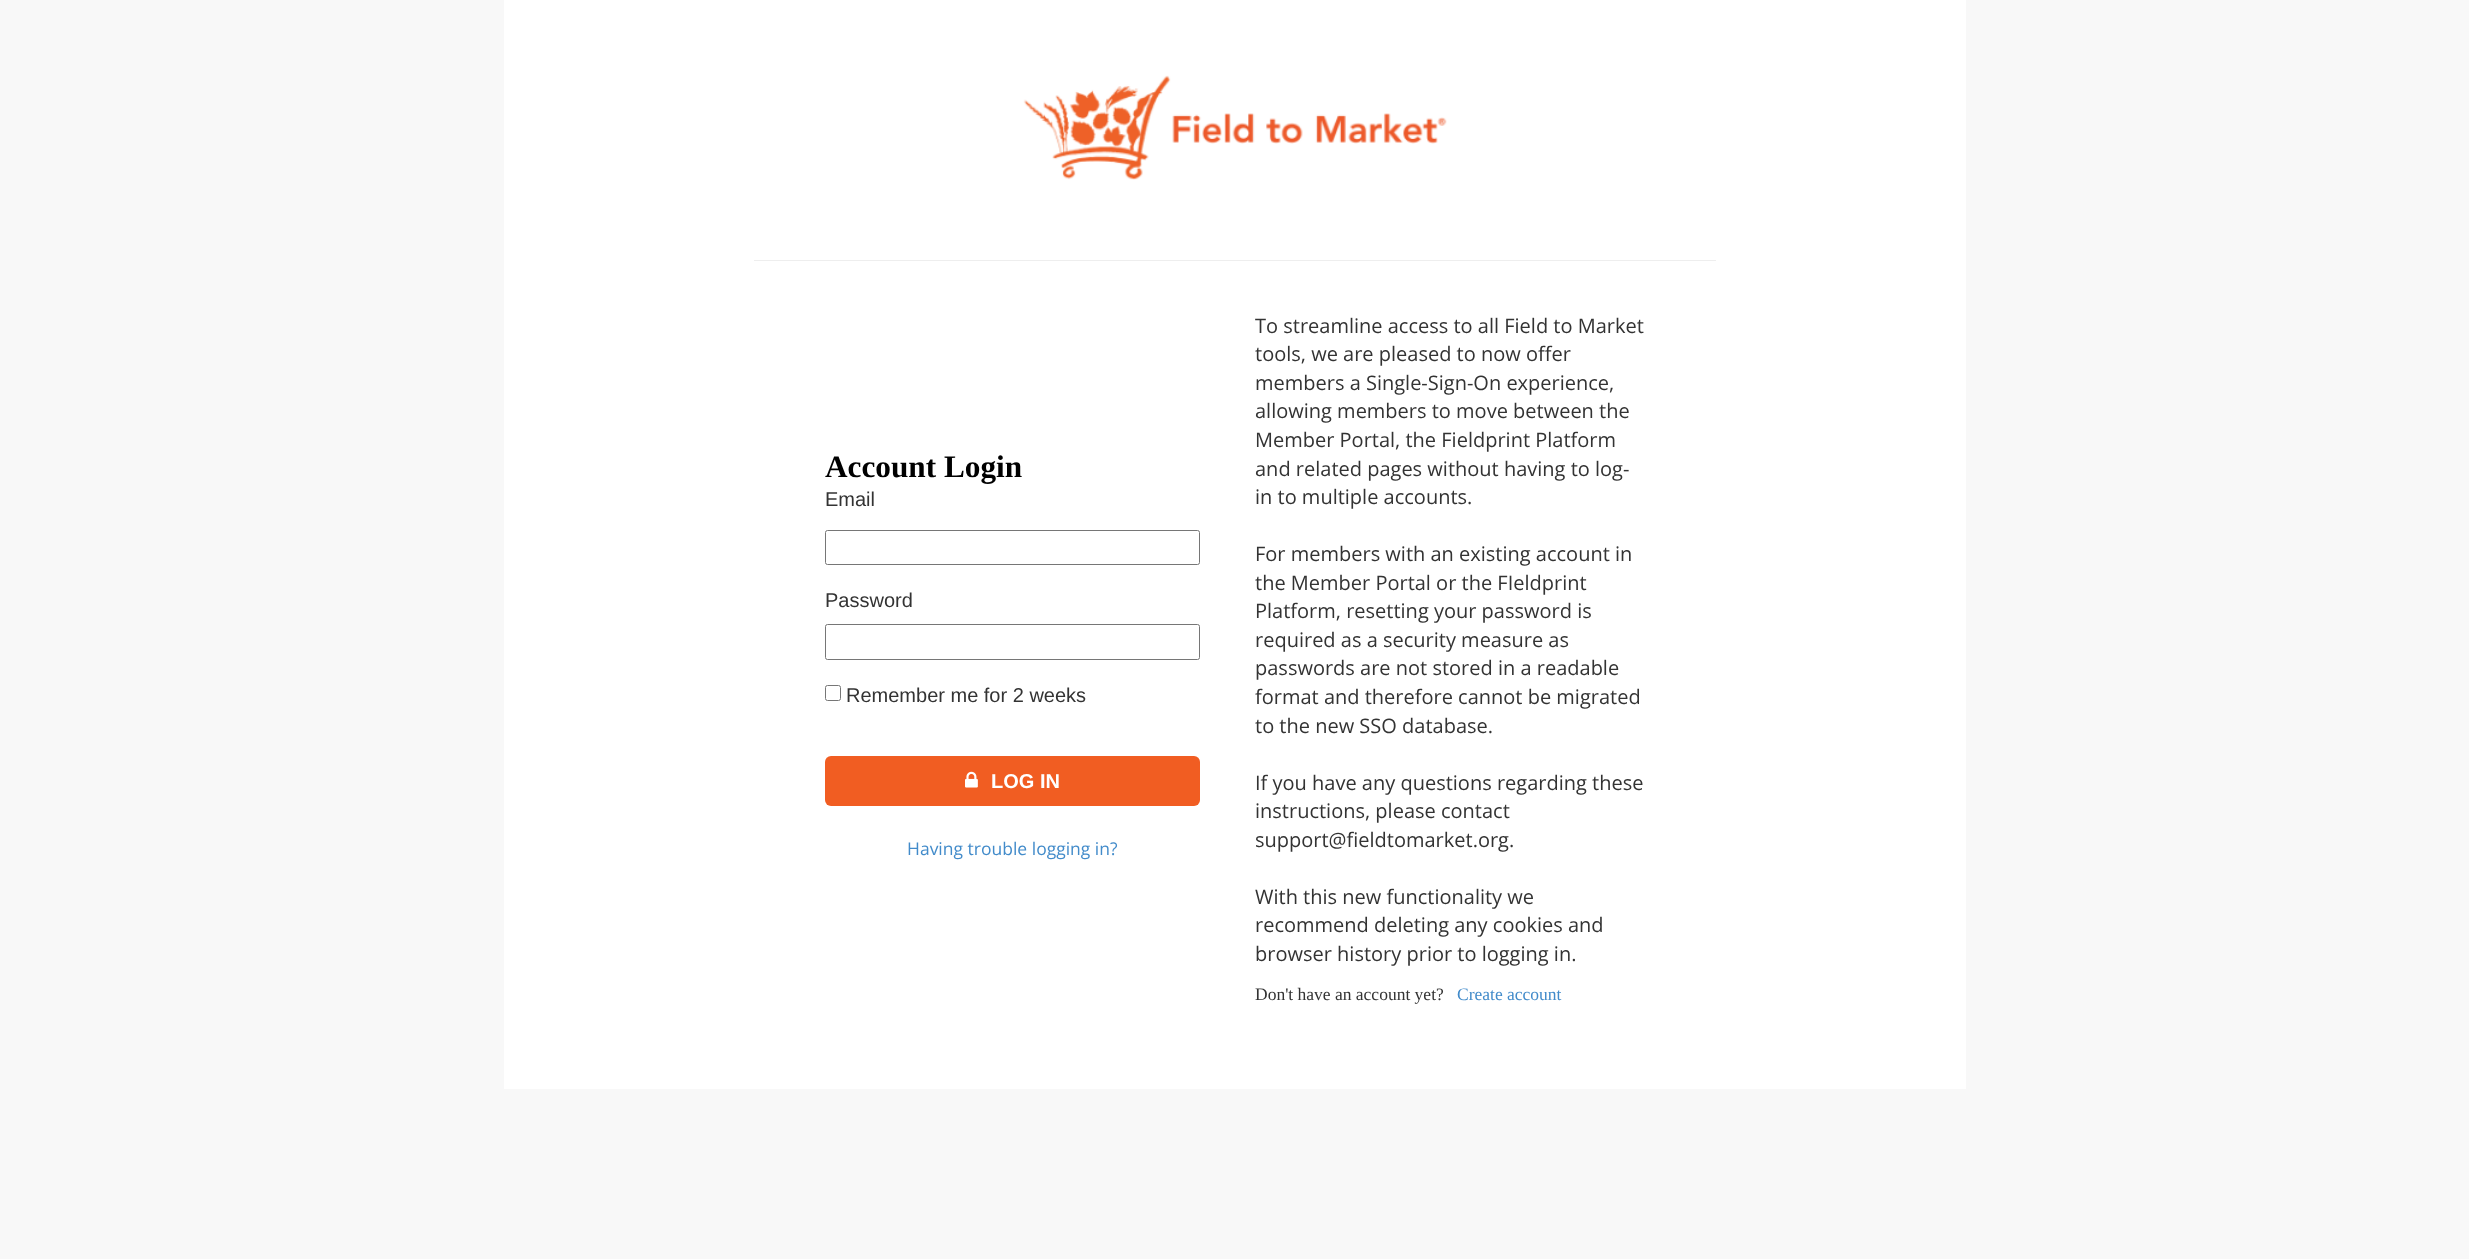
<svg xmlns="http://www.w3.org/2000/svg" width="2469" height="1259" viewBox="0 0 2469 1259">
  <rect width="100%" height="100%" fill="#f8f8f8"/>
  <rect x="504" y="0" width="1462" height="1089" fill="#ffffff"/>
  <image x="1023" y="75" width="424" height="105" href="img1.png"/>
  <rect x="754" y="260" width="962" height="1" fill="#eeeeee"/>
  <text x="825" y="477" font-family="Liberation Serif" font-size="31.25" font-weight="bold" fill="#000000">Account Login</text>
  <text x="825" y="506" font-family="Liberation Sans" font-size="20" fill="#333333">Email</text>
  <rect x="825.5" y="530.5" width="374" height="34" rx="2" fill="none" stroke="#767676"/>
  <text x="825" y="607" font-family="Liberation Sans" font-size="20" fill="#333333">Password</text>
  <rect x="825.5" y="624.5" width="374" height="35" rx="2" fill="none" stroke="#767676"/>
  <rect x="825.5" y="685.5" width="15" height="15" rx="2" fill="none" stroke="#767676"/>
  <text x="846" y="702" font-family="Liberation Sans" font-size="20" fill="#333333">Remember me for 2 weeks</text>
  <rect x="825" y="756" width="375" height="50" rx="6" fill="#f15d22"/>
  <image x="965" y="771" width="13" height="17" href="img2.png"/>
  <text x="991" y="788" font-family="Liberation Sans" font-size="20" font-weight="bold" fill="#ffffff">LOG IN</text>
  <text x="907" y="855" font-family="Open Sans" font-size="17.5" fill="#428bca">Having trouble logging in?</text>
  <text x="1255" y="333" font-family="Open Sans" font-size="20" fill="#333333">To streamline access to all Field to Market</text>
  <text x="1255" y="361" font-family="Open Sans" font-size="20" fill="#333333">tools, we are pleased to now offer</text>
  <text x="1255" y="390" font-family="Open Sans" font-size="20" fill="#333333">members a Single-Sign-On experience,</text>
  <text x="1255" y="418" font-family="Open Sans" font-size="20" fill="#333333">allowing members to move between the</text>
  <text x="1255" y="447" font-family="Open Sans" font-size="20" fill="#333333">Member Portal, the Fieldprint Platform</text>
  <text x="1255" y="476" font-family="Open Sans" font-size="20" fill="#333333">and related pages without having to log-</text>
  <text x="1255" y="504" font-family="Open Sans" font-size="20" fill="#333333">in to multiple accounts.</text>
  <text x="1255" y="561" font-family="Open Sans" font-size="20" fill="#333333">For members with an existing account in</text>
  <text x="1255" y="590" font-family="Open Sans" font-size="20" fill="#333333">the Member Portal or the FIeldprint</text>
  <text x="1255" y="618" font-family="Open Sans" font-size="20" fill="#333333">Platform, resetting your password is</text>
  <text x="1255" y="647" font-family="Open Sans" font-size="20" fill="#333333">required as a security measure as</text>
  <text x="1255" y="675" font-family="Open Sans" font-size="20" fill="#333333">passwords are not stored in a readable</text>
  <text x="1255" y="704" font-family="Open Sans" font-size="20" fill="#333333">format and therefore cannot be migrated</text>
  <text x="1255" y="733" font-family="Open Sans" font-size="20" fill="#333333">to the new SSO database.</text>
  <text x="1255" y="790" font-family="Open Sans" font-size="20" fill="#333333">If you have any questions regarding these</text>
  <text x="1255" y="818" font-family="Open Sans" font-size="20" fill="#333333">instructions, please contact</text>
  <text x="1255" y="847" font-family="Open Sans" font-size="20" fill="#333333">support@fieldtomarket.org.</text>
  <text x="1255" y="904" font-family="Open Sans" font-size="20" fill="#333333">With this new functionality we</text>
  <text x="1255" y="932" font-family="Open Sans" font-size="20" fill="#333333">recommend deleting any cookies and</text>
  <text x="1255" y="961" font-family="Open Sans" font-size="20" fill="#333333">browser history prior to logging in.</text>
  <text x="1255" y="1000" font-family="Liberation Serif" font-size="17.5" fill="#333333">Don't have an account yet?</text>
  <text x="1457" y="1000" font-family="Liberation Serif" font-size="17.5" fill="#428bca">Create account</text>
</svg>
